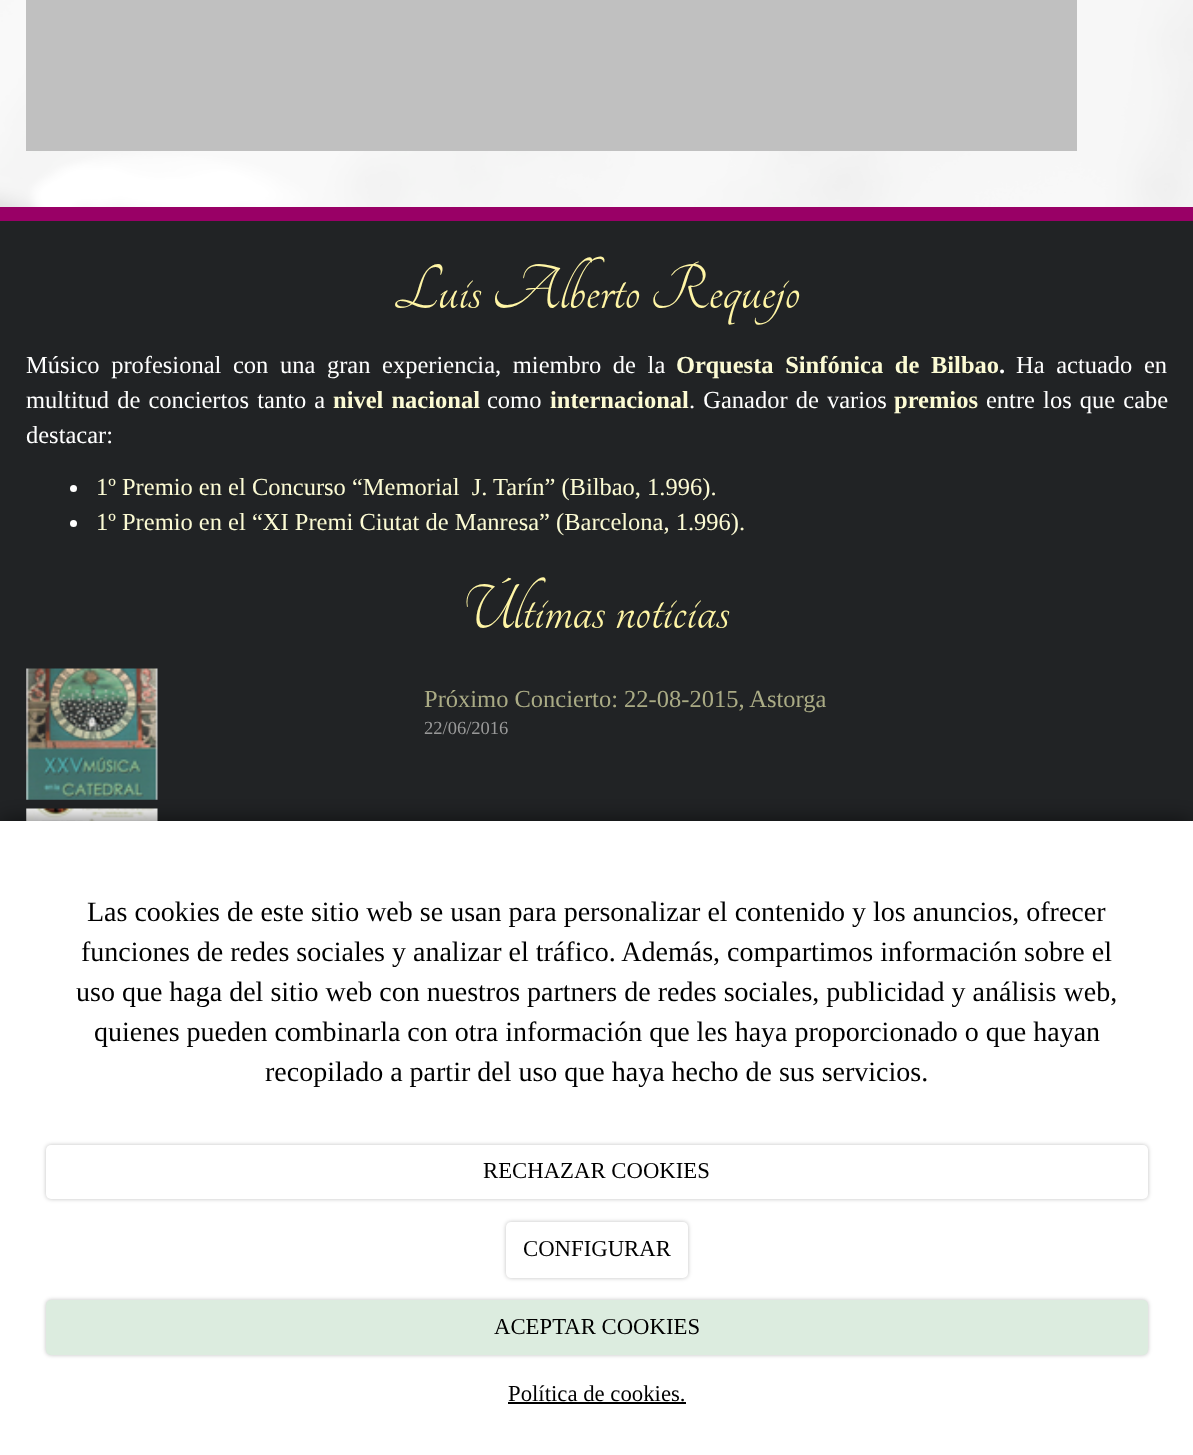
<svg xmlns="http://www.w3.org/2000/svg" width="1193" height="1455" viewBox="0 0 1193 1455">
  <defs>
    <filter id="blur1" x="-50%" y="-200%" width="200%" height="500%"><feGaussianBlur stdDeviation="11.5"/></filter>
    <filter id="blur2" x="-50%" y="-200%" width="200%" height="500%"><feGaussianBlur stdDeviation="2"/></filter>
  </defs>
  <rect width="100%" height="100%" fill="#ffffff"/>
  <image x="0" y="0" width="1193" height="207" href="img1.png"/>
  <rect x="26" y="0" width="1051" height="151" fill="#c0c0c0"/>
  <rect x="0" y="221" width="1193" height="600" fill="#212325"/>
  <rect x="0" y="207" width="1193" height="14" fill="#990066"/>
  <text x="393" y="308" font-family="Tangerine" font-size="68.25" fill="#fff5a5">Luis Alberto Requejo</text>
  <text x="26" y="373" word-spacing="5.5" font-family="Liberation Serif" font-size="24.5" fill="#ffffff">Músico profesional con una gran experiencia, miembro de la</text>
  <text x="676" y="373" word-spacing="5.5" font-family="Liberation Serif" font-size="24.5" font-weight="bold" fill="#fcfbd4">Orquesta Sinfónica de Bilbao</text>
  <text x="999" y="373" font-family="Liberation Serif" font-size="24.5" font-weight="bold" fill="#ffffff">.</text>
  <text x="1016" y="373" word-spacing="5.5" font-family="Liberation Serif" font-size="24.5" fill="#ffffff">Ha actuado en</text>
  <text x="26" y="408" word-spacing="2" font-family="Liberation Serif" font-size="24.5" fill="#ffffff">multitud de conciertos tanto a</text>
  <text x="333" y="408" word-spacing="2" font-family="Liberation Serif" font-size="24.5" font-weight="bold" fill="#fcfbd4">nivel nacional</text>
  <text x="487" y="408" font-family="Liberation Serif" font-size="24.5" fill="#ffffff">como</text>
  <text x="550" y="408" font-family="Liberation Serif" font-size="24.5" font-weight="bold" fill="#fcfbd4">internacional</text>
  <text x="689" y="408" word-spacing="2" font-family="Liberation Serif" font-size="24.5" fill="#ffffff">. Ganador de varios</text>
  <text x="894" y="408" font-family="Liberation Serif" font-size="24.5" font-weight="bold" fill="#fcfbd4">premios</text>
  <text x="986" y="408" word-spacing="2" font-family="Liberation Serif" font-size="24.5" fill="#ffffff">entre los que cabe</text>
  <text x="26" y="443" font-family="Liberation Serif" font-size="24.5" fill="#ffffff">destacar:</text>
  <circle cx="73.5" cy="488.5" r="3.5" fill="#ffffff"/>
  <text x="96" y="495" font-family="Liberation Serif" font-size="24.5" fill="#fcfbd4" xml:space="preserve">1º Premio en el Concurso “Memorial  J. Tarín” (Bilbao, 1.996).</text>
  <circle cx="73.5" cy="523.5" r="3.5" fill="#ffffff"/>
  <text x="96" y="530" font-family="Liberation Serif" font-size="24.5" fill="#fcfbd4">1º Premio en el “XI Premi Ciutat de Manresa” (Barcelona, 1.996).</text>
  <text x="464" y="628" font-family="Tangerine" font-size="68.25" fill="#fff5a5">Últimas noticias</text>
  <image x="26" y="668" width="132" height="132" href="img2.png"/>
  <text x="424" y="707" font-family="Liberation Serif" font-size="24.5" fill="#aaab85">Próximo Concierto: 22-08-2015, Astorga</text>
  <text x="424" y="734" font-family="Liberation Serif" font-size="18.5" fill="#999999">22/06/2016</text>
  <image x="26" y="808" width="132" height="13" href="img3.png"/>
  <rect x="0" y="821" width="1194" height="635" fill="#000000" fill-opacity="0.6" filter="url(#blur1)"/>
  <rect x="0" y="821" width="1193" height="634" fill="#ffffff"/>
  <text x="87" y="921" font-family="Liberation Serif" font-size="28" fill="#000000">Las cookies de este sitio web se usan para personalizar el contenido y los anuncios, ofrecer</text>
  <text x="81" y="961" font-family="Liberation Serif" font-size="28" fill="#000000">funciones de redes sociales y analizar el tráfico. Además, compartimos información sobre el</text>
  <text x="76" y="1001" font-family="Liberation Serif" font-size="28" fill="#000000">uso que haga del sitio web con nuestros partners de redes sociales, publicidad y análisis web,</text>
  <text x="94" y="1041" font-family="Liberation Serif" font-size="28" fill="#000000">quienes pueden combinarla con otra información que les haya proporcionado o que hayan</text>
  <text x="265" y="1081" font-family="Liberation Serif" font-size="28" fill="#000000">recopilado a partir del uso que haya hecho de sus servicios.</text>
  <rect x="46" y="1145" width="1102" height="54" rx="5" fill="#000000" fill-opacity="0.25" filter="url(#blur2)"/>
  <rect x="46" y="1145" width="1102" height="54" rx="5" fill="#ffffff"/>
  <text x="483" y="1178" font-family="Liberation Serif" font-size="22.75" fill="#000000">RECHAZAR COOKIES</text>
  <rect x="506" y="1222" width="182" height="56" rx="5" fill="#000000" fill-opacity="0.25" filter="url(#blur2)"/>
  <rect x="506" y="1222" width="182" height="56" rx="5" fill="#ffffff"/>
  <text x="523" y="1256" font-family="Liberation Serif" font-size="22.75" fill="#000000">CONFIGURAR</text>
  <rect x="46" y="1300" width="1102" height="55" rx="5" fill="#000000" fill-opacity="0.25" filter="url(#blur2)"/>
  <rect x="46" y="1300" width="1102" height="55" rx="5" fill="#dcecdf"/>
  <text x="494" y="1334" font-family="Liberation Serif" font-size="22.75" fill="#000000">ACEPTAR COOKIES</text>
  <text x="508" y="1401" font-family="Liberation Serif" font-size="22.75" fill="#000000">Política de cookies.</text>
  <rect x="508" y="1402" width="178" height="2" fill="#000000"/>
</svg>
